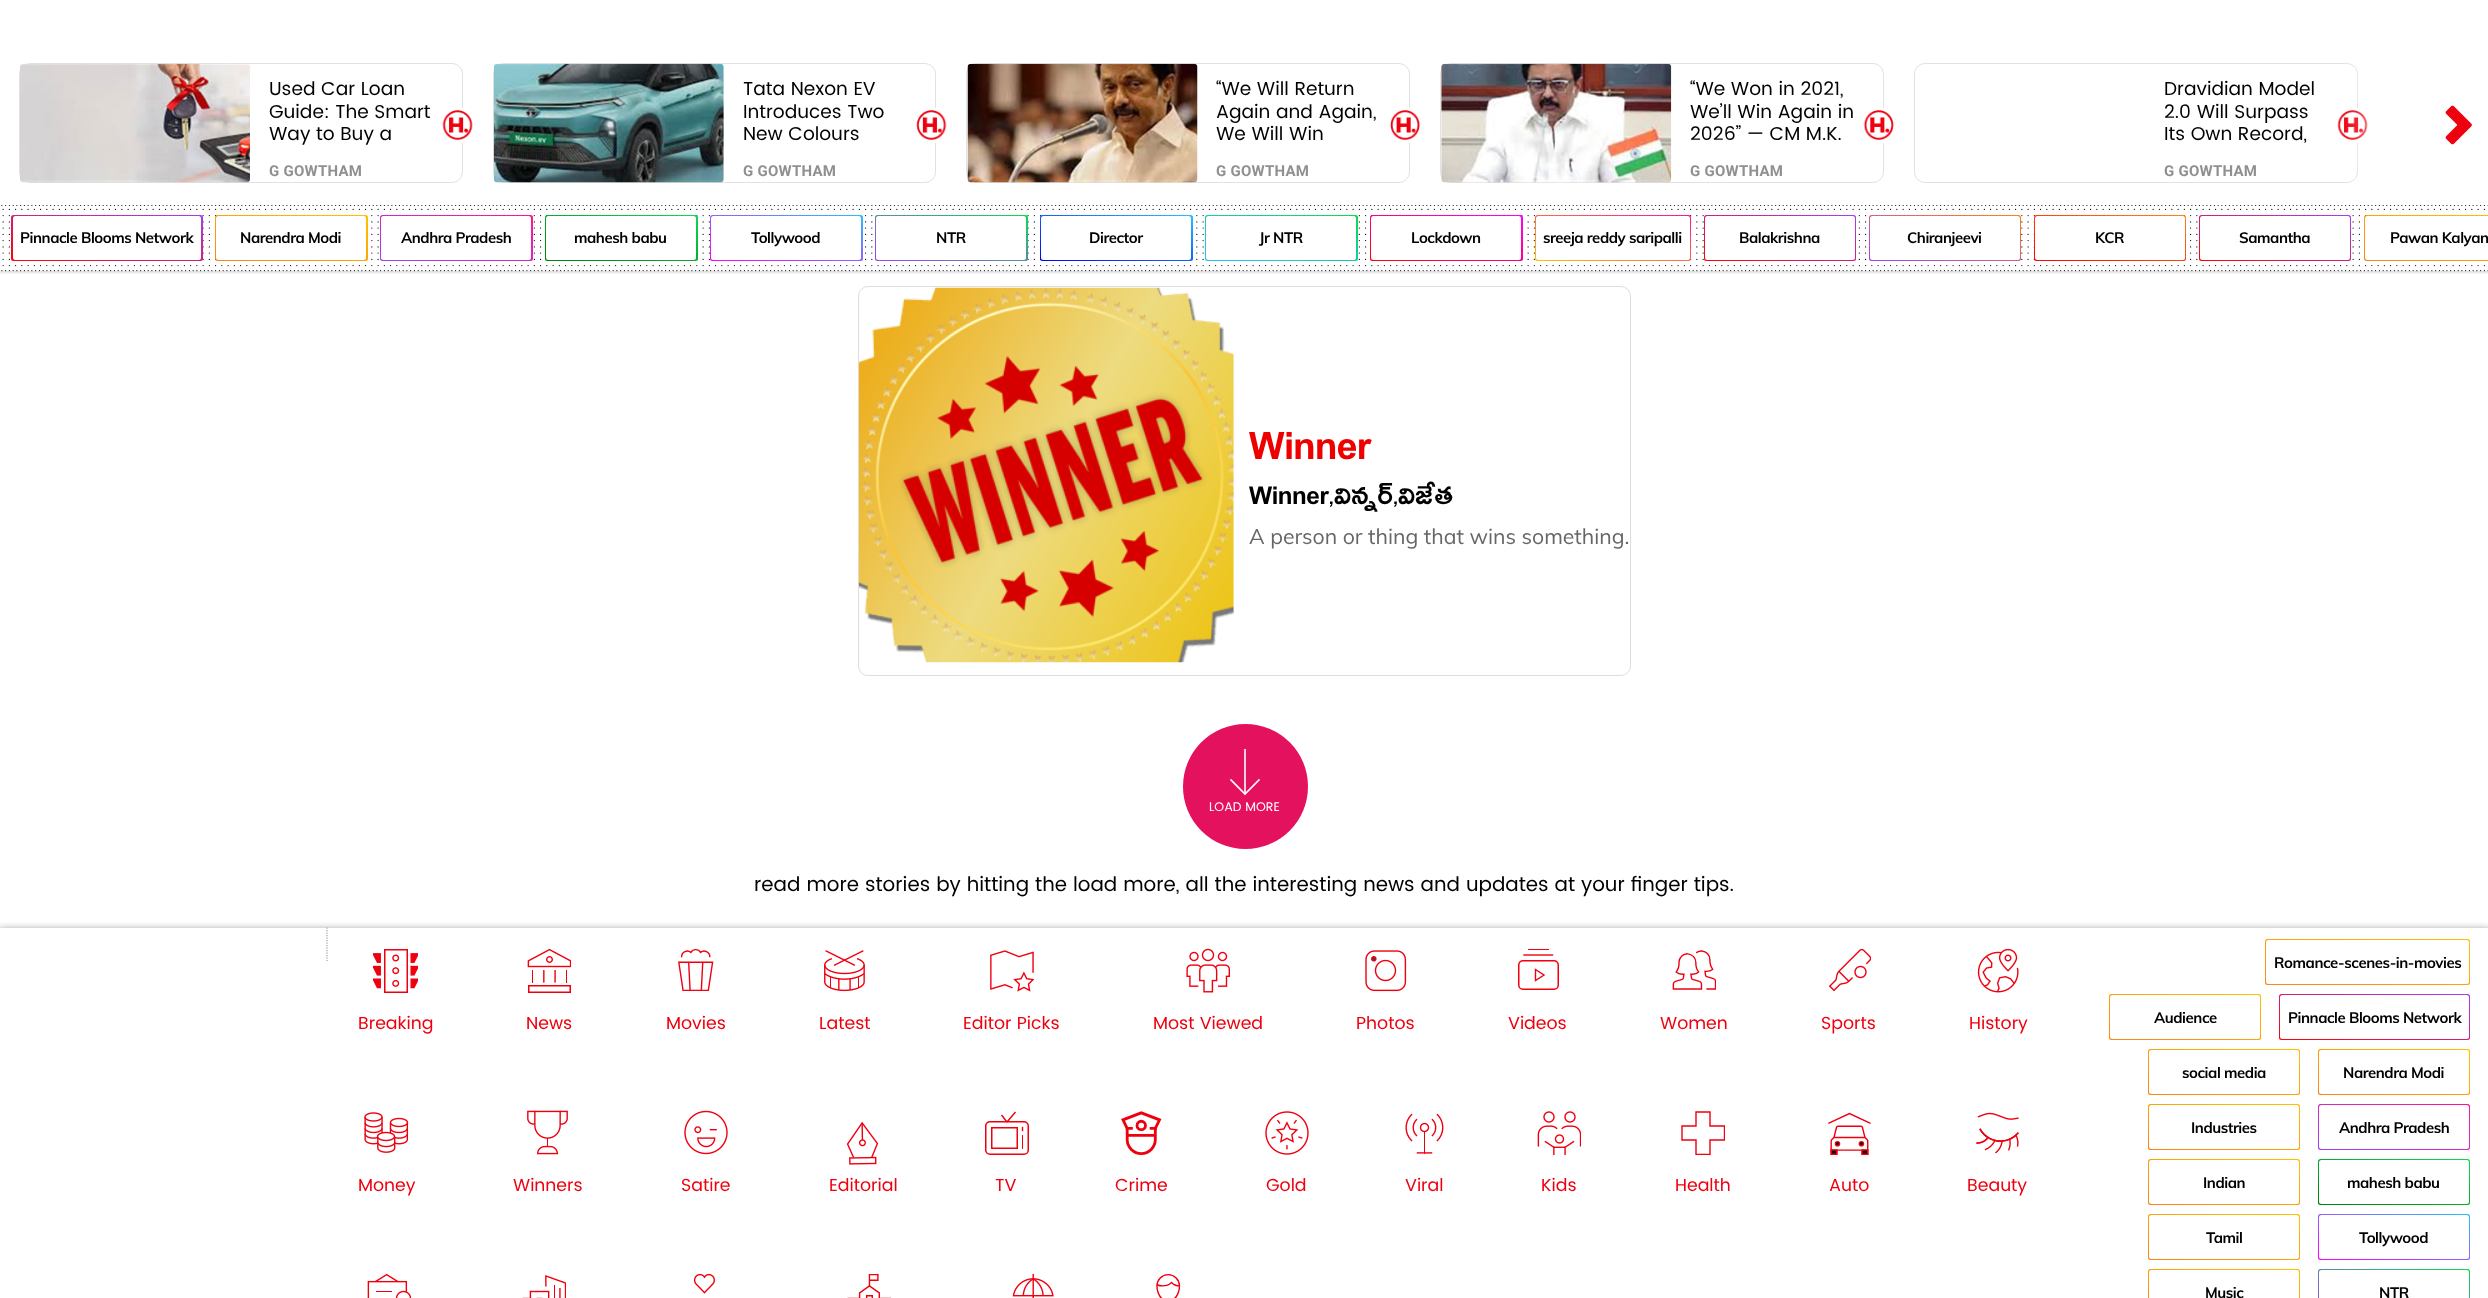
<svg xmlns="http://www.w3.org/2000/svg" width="2488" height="1298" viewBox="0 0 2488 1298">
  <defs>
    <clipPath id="clip1"><rect x="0" y="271" width="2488" height="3"/></clipPath>
    <filter id="blur1" x="-50%" y="-200%" width="200%" height="500%"><feGaussianBlur stdDeviation="1"/></filter>
    <linearGradient id="g1" gradientUnits="userSpaceOnUse" x1="2262" y1="280" x2="2288" y2="196"><stop offset="0" stop-color="#ff0000"/><stop offset="1" stop-color="#a43ef4"/></linearGradient>
    <linearGradient id="g2" gradientUnits="userSpaceOnUse" x1="2427" y1="280" x2="2453" y2="196"><stop offset="0" stop-color="#ff8413"/><stop offset="1" stop-color="#fcc200"/></linearGradient>
    <clipPath id="clip2"><rect x="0" y="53" width="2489" height="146" rx="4"/></clipPath>
    <filter id="blur2" x="-50%" y="-200%" width="200%" height="500%"><feGaussianBlur stdDeviation="17"/></filter>
    <linearGradient id="g3" gradientUnits="userSpaceOnUse" x1="96" y1="282" x2="117" y2="194"><stop offset="0" stop-color="#ff0000"/><stop offset="1" stop-color="#a43ef4"/></linearGradient>
    <linearGradient id="g4" gradientUnits="userSpaceOnUse" x1="278" y1="280" x2="304" y2="196"><stop offset="0" stop-color="#ff8413"/><stop offset="1" stop-color="#fcc200"/></linearGradient>
    <linearGradient id="g5" gradientUnits="userSpaceOnUse" x1="443" y1="280" x2="469" y2="196"><stop offset="0" stop-color="#a43ef4"/><stop offset="1" stop-color="#ff1493"/></linearGradient>
    <linearGradient id="g6" gradientUnits="userSpaceOnUse" x1="608" y1="280" x2="634" y2="196"><stop offset="0" stop-color="#008000"/><stop offset="1" stop-color="#0bda51"/></linearGradient>
    <linearGradient id="g7" gradientUnits="userSpaceOnUse" x1="773" y1="280" x2="799" y2="196"><stop offset="0" stop-color="#ff00ff"/><stop offset="1" stop-color="#26beff"/></linearGradient>
    <linearGradient id="g8" gradientUnits="userSpaceOnUse" x1="938" y1="280" x2="964" y2="196"><stop offset="0" stop-color="#a43ef4"/><stop offset="1" stop-color="#0bda51"/></linearGradient>
    <linearGradient id="g9" gradientUnits="userSpaceOnUse" x1="1103" y1="280" x2="1129" y2="196"><stop offset="0" stop-color="#0000ff"/><stop offset="1" stop-color="#26beff"/></linearGradient>
    <linearGradient id="g10" gradientUnits="userSpaceOnUse" x1="1268" y1="280" x2="1294" y2="196"><stop offset="0" stop-color="#26beff"/><stop offset="1" stop-color="#0bda51"/></linearGradient>
    <linearGradient id="g11" gradientUnits="userSpaceOnUse" x1="1433" y1="280" x2="1459" y2="196"><stop offset="0" stop-color="#ff0000"/><stop offset="1" stop-color="#ff00ff"/></linearGradient>
    <linearGradient id="g12" gradientUnits="userSpaceOnUse" x1="1601" y1="281" x2="1626" y2="196"><stop offset="0" stop-color="#fcc200"/><stop offset="1" stop-color="#ff1493"/></linearGradient>
    <linearGradient id="g13" gradientUnits="userSpaceOnUse" x1="1767" y1="280" x2="1793" y2="196"><stop offset="0" stop-color="#ff0000"/><stop offset="1" stop-color="#a43ef4"/></linearGradient>
    <linearGradient id="g14" gradientUnits="userSpaceOnUse" x1="1932" y1="280" x2="1958" y2="196"><stop offset="0" stop-color="#a43ef4"/><stop offset="1" stop-color="#ff8413"/></linearGradient>
    <linearGradient id="g15" gradientUnits="userSpaceOnUse" x1="2097" y1="280" x2="2123" y2="196"><stop offset="0" stop-color="#ff0000"/><stop offset="1" stop-color="#ff8413"/></linearGradient>
    <clipPath id="clip3"><rect x="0" y="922" width="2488" height="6"/></clipPath>
    <filter id="blur3" x="-50%" y="-200%" width="200%" height="500%"><feGaussianBlur stdDeviation="5.5"/></filter>
    <clipPath id="clip4"><rect x="1680" y="1110" width="45" height="45"/></clipPath>
    <linearGradient id="g16" gradientUnits="userSpaceOnUse" x1="2358" y1="1006" x2="2377" y2="918"><stop offset="0" stop-color="#ff8413"/><stop offset="1" stop-color="#fcc200"/></linearGradient>
    <linearGradient id="g17" gradientUnits="userSpaceOnUse" x1="2172" y1="1059" x2="2198" y2="975"><stop offset="0" stop-color="#ff8413"/><stop offset="1" stop-color="#fcc200"/></linearGradient>
    <linearGradient id="g18" gradientUnits="userSpaceOnUse" x1="2364" y1="1061" x2="2385" y2="973"><stop offset="0" stop-color="#ff0000"/><stop offset="1" stop-color="#a43ef4"/></linearGradient>
    <linearGradient id="g19" gradientUnits="userSpaceOnUse" x1="2211" y1="1114" x2="2237" y2="1030"><stop offset="0" stop-color="#ff8413"/><stop offset="1" stop-color="#fcc200"/></linearGradient>
    <linearGradient id="g20" gradientUnits="userSpaceOnUse" x1="2381" y1="1114" x2="2407" y2="1030"><stop offset="0" stop-color="#ff8413"/><stop offset="1" stop-color="#fcc200"/></linearGradient>
    <linearGradient id="g21" gradientUnits="userSpaceOnUse" x1="2211" y1="1169" x2="2237" y2="1085"><stop offset="0" stop-color="#ff8413"/><stop offset="1" stop-color="#fcc200"/></linearGradient>
    <linearGradient id="g22" gradientUnits="userSpaceOnUse" x1="2381" y1="1169" x2="2407" y2="1085"><stop offset="0" stop-color="#a43ef4"/><stop offset="1" stop-color="#ff1493"/></linearGradient>
    <linearGradient id="g23" gradientUnits="userSpaceOnUse" x1="2211" y1="1224" x2="2237" y2="1140"><stop offset="0" stop-color="#ff8413"/><stop offset="1" stop-color="#fcc200"/></linearGradient>
    <linearGradient id="g24" gradientUnits="userSpaceOnUse" x1="2381" y1="1224" x2="2407" y2="1140"><stop offset="0" stop-color="#008000"/><stop offset="1" stop-color="#0bda51"/></linearGradient>
    <linearGradient id="g25" gradientUnits="userSpaceOnUse" x1="2211" y1="1279" x2="2237" y2="1195"><stop offset="0" stop-color="#ff8413"/><stop offset="1" stop-color="#fcc200"/></linearGradient>
    <linearGradient id="g26" gradientUnits="userSpaceOnUse" x1="2381" y1="1279" x2="2407" y2="1195"><stop offset="0" stop-color="#ff00ff"/><stop offset="1" stop-color="#26beff"/></linearGradient>
    <linearGradient id="g27" gradientUnits="userSpaceOnUse" x1="2211" y1="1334" x2="2237" y2="1250"><stop offset="0" stop-color="#ff8413"/><stop offset="1" stop-color="#fcc200"/></linearGradient>
    <linearGradient id="g28" gradientUnits="userSpaceOnUse" x1="2381" y1="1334" x2="2407" y2="1250"><stop offset="0" stop-color="#a43ef4"/><stop offset="1" stop-color="#0bda51"/></linearGradient>
  </defs>
  <rect width="100%" height="100%" fill="#ffffff"/>
  <g clip-path="url(#clip1)">
    <rect x="0" y="-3" width="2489" height="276" fill="#94969f" fill-opacity="0.3" filter="url(#blur1)"/>
  </g>
  <rect x="19.5" y="63.5" width="443" height="119" rx="10.5" fill="none" stroke="#e2e2e2"/>
  <image x="20" y="63" width="230" height="120" href="img1.png"/>
  <text x="269" y="95" font-family="Poppins" font-size="18.75" fill="#000000">Used Car Loan</text>
  <text x="269" y="118" font-family="Poppins" font-size="18.75" fill="#000000">Guide: The Smart</text>
  <text x="269" y="140" font-family="Poppins" font-size="18.75" fill="#000000">Way to Buy a</text>
  <text x="269" y="176" font-family="Roboto" font-size="15" font-weight="bold" letter-spacing="0.25" fill="#909090">G GOWTHAM</text>
  <rect x="462" y="108" width="1" height="35" fill="#ffffff"/>
  <image x="442" y="110" width="31" height="30" href="img2.png"/>
  <rect x="493.5" y="63.5" width="442" height="119" rx="10.5" fill="none" stroke="#e2e2e2"/>
  <image x="493" y="63" width="231" height="120" href="img3.png"/>
  <text x="743" y="95" font-family="Poppins" font-size="18.75" fill="#000000">Tata Nexon EV</text>
  <text x="743" y="118" font-family="Poppins" font-size="18.75" fill="#000000">Introduces Two</text>
  <text x="743" y="140" font-family="Poppins" font-size="18.75" fill="#000000">New Colours</text>
  <text x="743" y="176" font-family="Roboto" font-size="15" font-weight="bold" letter-spacing="0.25" fill="#909090">G GOWTHAM</text>
  <rect x="935" y="108" width="1" height="35" fill="#ffffff"/>
  <image x="916" y="110" width="31" height="30" href="img4.png"/>
  <rect x="966.5" y="63.5" width="443" height="119" rx="10.5" fill="none" stroke="#e2e2e2"/>
  <image x="967" y="63" width="231" height="120" href="img5.png"/>
  <text x="1216" y="95" font-family="Poppins" font-size="18.75" fill="#000000">“We Will Return</text>
  <text x="1216" y="118" font-family="Poppins" font-size="18.75" fill="#000000">Again and Again,</text>
  <text x="1216" y="140" font-family="Poppins" font-size="18.75" fill="#000000">We Will Win</text>
  <text x="1216" y="176" font-family="Roboto" font-size="15" font-weight="bold" letter-spacing="0.25" fill="#909090">G GOWTHAM</text>
  <rect x="1409" y="108" width="1" height="35" fill="#ffffff"/>
  <image x="1390" y="110" width="30" height="30" href="img6.png"/>
  <rect x="1440.5" y="63.5" width="443" height="119" rx="10.5" fill="none" stroke="#e2e2e2"/>
  <image x="1441" y="63" width="231" height="120" href="img7.png"/>
  <text x="1690" y="95" font-family="Poppins" font-size="18.75" fill="#000000">“We Won in 2021,</text>
  <text x="1690" y="118" font-family="Poppins" font-size="18.75" fill="#000000">We’ll Win Again in</text>
  <text x="1690" y="140" font-family="Poppins" font-size="18.75" fill="#000000">2026” — CM M.K.</text>
  <text x="1690" y="176" font-family="Roboto" font-size="15" font-weight="bold" letter-spacing="0.25" fill="#909090">G GOWTHAM</text>
  <rect x="1883" y="108" width="1" height="35" fill="#ffffff"/>
  <image x="1863" y="110" width="31" height="30" href="img8.png"/>
  <rect x="1914.5" y="63.5" width="443" height="119" rx="10.5" fill="none" stroke="#e2e2e2"/>
  <text x="2164" y="95" font-family="Poppins" font-size="18.75" fill="#000000">Dravidian Model</text>
  <text x="2164" y="118" font-family="Poppins" font-size="18.75" fill="#000000">2.0 Will Surpass</text>
  <text x="2164" y="140" font-family="Poppins" font-size="18.75" fill="#000000">Its Own Record,</text>
  <text x="2164" y="176" font-family="Roboto" font-size="15" font-weight="bold" letter-spacing="0.25" fill="#909090">G GOWTHAM</text>
  <rect x="2357" y="108" width="1" height="35" fill="#ffffff"/>
  <image x="2337" y="110" width="31" height="30" href="img2.png"/>
  <path d="M1.9 205.6H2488.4" fill="none" stroke="#000000" stroke-width="1.2" stroke-linecap="round" stroke-dasharray="0 3.75"/>
  <rect x="1" y="206" width="2487" height="1" fill="#ffffff"/>
  <path d="M3.1 209.4H2484.6" fill="none" stroke="#000000" stroke-width="1.2" stroke-linecap="round" stroke-dasharray="0 6.25"/>
  <path d="M3.1 215.6H2484.6" fill="none" stroke="#000000" stroke-width="1.2" stroke-linecap="round" stroke-dasharray="0 6.25"/>
  <path d="M3.1 221.9H2484.6" fill="none" stroke="#000000" stroke-width="1.2" stroke-linecap="round" stroke-dasharray="0 6.25"/>
  <path d="M3.1 228.1H2484.6" fill="none" stroke="#000000" stroke-width="1.2" stroke-linecap="round" stroke-dasharray="0 6.25"/>
  <path d="M3.1 234.4H2484.6" fill="none" stroke="#000000" stroke-width="1.2" stroke-linecap="round" stroke-dasharray="0 6.25"/>
  <path d="M3.1 240.6H2484.6" fill="none" stroke="#000000" stroke-width="1.2" stroke-linecap="round" stroke-dasharray="0 6.25"/>
  <path d="M3.1 246.9H2484.6" fill="none" stroke="#000000" stroke-width="1.2" stroke-linecap="round" stroke-dasharray="0 6.25"/>
  <path d="M3.1 253.1H2484.6" fill="none" stroke="#000000" stroke-width="1.2" stroke-linecap="round" stroke-dasharray="0 6.25"/>
  <path d="M3.1 259.4H2484.6" fill="none" stroke="#000000" stroke-width="1.2" stroke-linecap="round" stroke-dasharray="0 6.25"/>
  <path d="M3.1 265.6H2484.6" fill="none" stroke="#000000" stroke-width="1.2" stroke-linecap="round" stroke-dasharray="0 6.25"/>
  <rect x="2199" y="215" width="152" height="46" rx="2.5" fill="url(#g1)"/>
  <rect x="2200" y="216" width="150" height="44" rx="2.5" fill="#ffffff"/>
  <path d="M2366.5 215H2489V261H2366.5C2365 261 2364 260 2364 258.5V217.5C2364 216 2365 215 2366.5 215Z" fill="url(#g2)"/>
  <path d="M2367.5 216H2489V260H2367.5C2366 260 2365 259 2365 257.5V218.5C2365 217 2366 216 2367.5 216Z" fill="#ffffff"/>
  <path d="M1.9 270.6H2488.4" fill="none" stroke="#000000" stroke-width="1.2" stroke-linecap="round" stroke-dasharray="0 3.75"/>
  <g clip-path="url(#clip2)">
    <rect x="2375" y="-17" width="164" height="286" fill="#ffffff" filter="url(#blur2)"/>
  </g>
  <image x="2445" y="105" width="27" height="40" href="img9.png"/>
  <rect x="11" y="215" width="192" height="46" rx="2.5" fill="url(#g3)"/>
  <rect x="13" y="216" width="188" height="44" rx="2.5" fill="#ffffff"/>
  <text x="20" y="243" font-family="Muli" font-size="15" font-weight="bold" letter-spacing="-0.45" fill="#000000">Pinnacle Blooms Network</text>
  <rect x="215" y="215" width="153" height="46" rx="2.5" fill="url(#g4)"/>
  <rect x="216" y="216" width="150" height="44" rx="2.5" fill="#ffffff"/>
  <text x="240" y="243" font-family="Muli" font-size="15" font-weight="bold" letter-spacing="-0.45" fill="#000000">Narendra Modi</text>
  <rect x="380" y="215" width="153" height="46" rx="2.5" fill="url(#g5)"/>
  <rect x="381" y="216" width="150" height="44" rx="2.5" fill="#ffffff"/>
  <text x="401" y="243" font-family="Muli" font-size="15" font-weight="bold" letter-spacing="-0.45" fill="#000000">Andhra Pradesh</text>
  <rect x="545" y="215" width="153" height="46" rx="2.5" fill="url(#g6)"/>
  <rect x="546" y="216" width="150" height="44" rx="2.5" fill="#ffffff"/>
  <text x="574" y="243" font-family="Muli" font-size="15" font-weight="bold" letter-spacing="-0.45" fill="#000000">mahesh babu</text>
  <rect x="710" y="215" width="153" height="46" rx="2.5" fill="url(#g7)"/>
  <rect x="711" y="216" width="150" height="44" rx="2.5" fill="#ffffff"/>
  <text x="751" y="243" font-family="Muli" font-size="15" font-weight="bold" letter-spacing="-0.45" fill="#000000">Tollywood</text>
  <rect x="875" y="215" width="153" height="46" rx="2.5" fill="url(#g8)"/>
  <rect x="876" y="216" width="150" height="44" rx="2.5" fill="#ffffff"/>
  <text x="936" y="243" font-family="Muli" font-size="15" font-weight="bold" letter-spacing="-0.45" fill="#000000">NTR</text>
  <rect x="1040" y="215" width="153" height="46" rx="2.5" fill="url(#g9)"/>
  <rect x="1041" y="216" width="150" height="44" rx="2.5" fill="#ffffff"/>
  <text x="1089" y="243" font-family="Muli" font-size="15" font-weight="bold" letter-spacing="-0.45" fill="#000000">Director</text>
  <rect x="1205" y="215" width="153" height="46" rx="2.5" fill="url(#g10)"/>
  <rect x="1206" y="216" width="150" height="44" rx="2.5" fill="#ffffff"/>
  <text x="1259" y="243" font-family="Muli" font-size="15" font-weight="bold" letter-spacing="-0.45" fill="#000000">Jr NTR</text>
  <rect x="1370" y="215" width="153" height="46" rx="2.5" fill="url(#g11)"/>
  <rect x="1371" y="216" width="150" height="44" rx="2.5" fill="#ffffff"/>
  <text x="1411" y="243" font-family="Muli" font-size="15" font-weight="bold" letter-spacing="-0.45" fill="#000000">Lockdown</text>
  <rect x="1535" y="215" width="156" height="46" rx="2.5" fill="url(#g12)"/>
  <rect x="1536" y="216" width="154" height="44" rx="2.5" fill="#ffffff"/>
  <text x="1543" y="243" font-family="Muli" font-size="15" font-weight="bold" letter-spacing="-0.45" fill="#000000">sreeja reddy saripalli</text>
  <rect x="1704" y="215" width="152" height="46" rx="2.5" fill="url(#g13)"/>
  <rect x="1705" y="216" width="150" height="44" rx="2.5" fill="#ffffff"/>
  <text x="1739" y="243" font-family="Muli" font-size="15" font-weight="bold" letter-spacing="-0.45" fill="#000000">Balakrishna</text>
  <rect x="1869" y="215" width="152" height="46" rx="2.5" fill="url(#g14)"/>
  <rect x="1870" y="216" width="150" height="44" rx="2.5" fill="#ffffff"/>
  <text x="1907" y="243" font-family="Muli" font-size="15" font-weight="bold" letter-spacing="-0.45" fill="#000000">Chiranjeevi</text>
  <rect x="2034" y="215" width="152" height="46" rx="2.5" fill="url(#g15)"/>
  <rect x="2035" y="216" width="150" height="44" rx="2.5" fill="#ffffff"/>
  <text x="2095" y="243" font-family="Muli" font-size="15" font-weight="bold" letter-spacing="-0.45" fill="#000000">KCR</text>
  <text x="2239" y="243" font-family="Muli" font-size="15" font-weight="bold" letter-spacing="-0.45" fill="#000000">Samantha</text>
  <text x="2390" y="243" font-family="Muli" font-size="15" font-weight="bold" letter-spacing="-0.45" fill="#000000">Pawan Kalyan</text>
  <rect x="858.5" y="286.5" width="772" height="389" rx="9.5" fill="none" stroke="#dedede"/>
  <image x="858" y="287" width="376" height="376" href="img10.png"/>
  <text x="1249" y="459" font-family="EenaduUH" font-size="46" fill="#ee0000">Winner</text>
  <text x="1249" y="504" font-family="EenaduUH" font-size="30" fill="#000000">Winner,విన్నర్,విజేత</text>
  <text x="1249" y="544" font-family="Muli" font-size="21.25" fill="#666666">A person or thing that wins something.</text>
  <circle cx="1245.5" cy="786.5" r="62.5" fill="#e4115e"/>
  <rect x="1244" y="749" width="2" height="45" fill="#facfdf"/>
  <path d="M1259 780L1245 794L1231 780" fill="none" stroke="#ffffff" stroke-width="1.6" stroke-linecap="square"/>
  <text x="1209" y="811" font-family="Poppins" font-size="12.5" fill="#ffffff">LOAD MORE</text>
  <text x="754" y="891" font-family="Poppins" font-size="20" fill="#000000">read more stories by hitting the load more, all the interesting news and updates at your finger tips.</text>
  <g clip-path="url(#clip3)">
    <rect x="-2" y="933" width="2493" height="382" fill="#000000" filter="url(#blur3)"/>
  </g>
  <path d="M327 927.5V961" fill="none" stroke="#a1a1a1" stroke-width="1.2" stroke-dasharray="1.25 1.25"/>
  <image x="373" y="949" width="45" height="44" href="img11.png"/>
  <text x="358" y="1029" font-family="Poppins" font-size="17.5" fill="#ee000f">Breaking</text>
  <image x="527" y="948" width="44" height="45" href="img12.png"/>
  <text x="526" y="1029" font-family="Poppins" font-size="17.5" fill="#ee000f">News</text>
  <image x="678" y="949" width="36" height="42" href="img13.png"/>
  <text x="666" y="1029" font-family="Poppins" font-size="17.5" fill="#ee000f">Movies</text>
  <image x="824" y="950" width="41" height="42" href="img14.png"/>
  <text x="819" y="1029" font-family="Poppins" font-size="17.5" fill="#ee000f">Latest</text>
  <image x="990" y="950" width="44" height="42" href="img15.png"/>
  <text x="963" y="1029" font-family="Poppins" font-size="17.5" fill="#ee000f">Editor Picks</text>
  <image x="1186" y="948" width="44" height="45" href="img16.png"/>
  <text x="1153" y="1029" font-family="Poppins" font-size="17.5" fill="#ee000f">Most Viewed</text>
  <image x="1365" y="950" width="42" height="42" href="img17.png"/>
  <text x="1356" y="1029" font-family="Poppins" font-size="17.5" fill="#ee000f">Photos</text>
  <rect x="1528" y="949" width="21" height="1" fill="#ee000f"/>
  <path d="M1524 955H1552.5" fill="none" stroke="#ee000f" stroke-width="1.4" stroke-linecap="square"/>
  <rect x="1518.75" y="960.75" width="39.5" height="28.5" rx="4.25" fill="none" stroke="#ee000f" stroke-width="1.5"/>
  <path d="M1535.5 969.5L1544 975L1535.5 980.5Z" fill="none" stroke="#ee000f" stroke-width="1.4" stroke-linecap="square"/>
  <text x="1508" y="1029" font-family="Poppins" font-size="17.5" fill="#ee000f">Videos</text>
  <image x="1672" y="950" width="44" height="40" href="img18.png"/>
  <text x="1660" y="1029" font-family="Poppins" font-size="17.5" fill="#ee000f">Women</text>
  <image x="1828" y="948" width="43" height="44" href="img19.png"/>
  <text x="1821" y="1029" font-family="Poppins" font-size="17.5" fill="#ee000f">Sports</text>
  <image x="1977" y="948" width="42" height="45" href="img20.png"/>
  <text x="1969" y="1029" font-family="Poppins" font-size="17.5" fill="#ee000f">History</text>
  <image x="364" y="1112" width="45" height="41" href="img21.png"/>
  <text x="358" y="1191" font-family="Poppins" font-size="17.5" fill="#ee000f">Money</text>
  <image x="527" y="1110" width="41" height="45" href="img22.png"/>
  <text x="513" y="1191" font-family="Poppins" font-size="17.5" fill="#ee000f">Winners</text>
  <image x="684" y="1110" width="44" height="45" href="img23.png"/>
  <text x="681" y="1191" font-family="Poppins" font-size="17.5" fill="#ee000f">Satire</text>
  <image x="846" y="1121" width="33" height="44" href="img24.png"/>
  <text x="829" y="1191" font-family="Poppins" font-size="17.5" fill="#ee000f">Editorial</text>
  <path d="M1001.5 1115L1007 1122M1007 1122L1015.5 1112" fill="none" stroke="#ee000f" stroke-width="1.4"/>
  <rect x="991.75" y="1127.75" width="25.5" height="20.5" fill="none" stroke="#ee000f" stroke-width="1.5"/>
  <path d="M1022.5 1127.5V1130.5" fill="none" stroke="#ee000f" stroke-width="1.4" stroke-linecap="square"/>
  <rect x="1022" y="1135" width="1" height="14" fill="#ee000f"/>
  <rect x="985.75" y="1121.75" width="42.5" height="32.5" rx="4.25" fill="none" stroke="#ee000f" stroke-width="1.5"/>
  <text x="995" y="1191" font-family="Poppins" font-size="17.5" fill="#ee000f">TV</text>
  <image x="1121" y="1111" width="41" height="44" href="img25.png"/>
  <text x="1115" y="1191" font-family="Poppins" font-size="17.5" fill="#ee000f">Crime</text>
  <image x="1265" y="1111" width="44" height="44" href="img26.png"/>
  <text x="1266" y="1191" font-family="Poppins" font-size="17.5" fill="#ee000f">Gold</text>
  <image x="1405" y="1113" width="39" height="41" href="img27.png"/>
  <text x="1405" y="1191" font-family="Poppins" font-size="17.5" fill="#ee000f">Viral</text>
  <image x="1537" y="1111" width="44" height="44" href="img28.png"/>
  <text x="1541" y="1191" font-family="Poppins" font-size="17.5" fill="#ee000f">Kids</text>
  <g clip-path="url(#clip4)">
    <path d="M1724.5 1126H1710V1112H1696V1126H1682V1140H1696V1154.5H1710V1140H1724.5Z" fill="none" stroke="#ee000f" stroke-width="1.4" stroke-linecap="square"/>
  </g>
  <text x="1675" y="1191" font-family="Poppins" font-size="17.5" fill="#ee000f">Health</text>
  <image x="1828" y="1112" width="43" height="43" href="img29.png"/>
  <text x="1829" y="1191" font-family="Poppins" font-size="17.5" fill="#ee000f">Auto</text>
  <image x="1976" y="1112" width="43" height="42" href="img30.png"/>
  <text x="1967" y="1191" font-family="Poppins" font-size="17.5" fill="#ee000f">Beauty</text>
  <image x="367" y="1273" width="44" height="25" href="img31.png"/>
  <image x="522" y="1275" width="44" height="23" href="img32.png"/>
  <image x="693" y="1273" width="22" height="21" href="img33.png"/>
  <image x="847" y="1274" width="44" height="24" href="img34.png"/>
  <image x="1012" y="1273" width="42" height="25" href="img35.png"/>
  <image x="1156" y="1274" width="25" height="24" href="img36.png"/>
  <rect x="2265" y="939" width="205" height="46" rx="2.5" fill="url(#g16)"/>
  <rect x="2266" y="940" width="203" height="44" rx="2.5" fill="#ffffff"/>
  <text x="2274" y="968" font-family="Muli" font-size="15" font-weight="bold" letter-spacing="-0.45" fill="#000000">Romance-scenes-in-movies</text>
  <rect x="2109" y="994" width="152" height="46" rx="2.5" fill="url(#g17)"/>
  <rect x="2110" y="995" width="150" height="44" rx="2.5" fill="#ffffff"/>
  <text x="2154" y="1023" font-family="Muli" font-size="15" font-weight="bold" letter-spacing="-0.45" fill="#000000">Audience</text>
  <rect x="2279" y="994" width="191" height="46" rx="2.5" fill="url(#g18)"/>
  <rect x="2280" y="995" width="189" height="44" rx="2.5" fill="#ffffff"/>
  <text x="2288" y="1023" font-family="Muli" font-size="15" font-weight="bold" letter-spacing="-0.45" fill="#000000">Pinnacle Blooms Network</text>
  <rect x="2148" y="1049" width="152" height="46" rx="2.5" fill="url(#g19)"/>
  <rect x="2149" y="1050" width="150" height="44" rx="2.5" fill="#ffffff"/>
  <text x="2182" y="1078" font-family="Muli" font-size="15" font-weight="bold" letter-spacing="-0.45" fill="#000000">social media</text>
  <rect x="2318" y="1049" width="152" height="46" rx="2.5" fill="url(#g20)"/>
  <rect x="2319" y="1050" width="150" height="44" rx="2.5" fill="#ffffff"/>
  <text x="2343" y="1078" font-family="Muli" font-size="15" font-weight="bold" letter-spacing="-0.45" fill="#000000">Narendra Modi</text>
  <rect x="2148" y="1104" width="152" height="46" rx="2.5" fill="url(#g21)"/>
  <rect x="2149" y="1105" width="150" height="44" rx="2.5" fill="#ffffff"/>
  <text x="2191" y="1133" font-family="Muli" font-size="15" font-weight="bold" letter-spacing="-0.45" fill="#000000">Industries</text>
  <rect x="2318" y="1104" width="152" height="46" rx="2.5" fill="url(#g22)"/>
  <rect x="2319" y="1105" width="150" height="44" rx="2.5" fill="#ffffff"/>
  <text x="2339" y="1133" font-family="Muli" font-size="15" font-weight="bold" letter-spacing="-0.45" fill="#000000">Andhra Pradesh</text>
  <rect x="2148" y="1159" width="152" height="46" rx="2.5" fill="url(#g23)"/>
  <rect x="2149" y="1160" width="150" height="44" rx="2.5" fill="#ffffff"/>
  <text x="2203" y="1188" font-family="Muli" font-size="15" font-weight="bold" letter-spacing="-0.45" fill="#000000">Indian</text>
  <rect x="2318" y="1159" width="152" height="46" rx="2.5" fill="url(#g24)"/>
  <rect x="2319" y="1160" width="150" height="44" rx="2.5" fill="#ffffff"/>
  <text x="2347" y="1188" font-family="Muli" font-size="15" font-weight="bold" letter-spacing="-0.45" fill="#000000">mahesh babu</text>
  <rect x="2148" y="1214" width="152" height="46" rx="2.5" fill="url(#g25)"/>
  <rect x="2149" y="1215" width="150" height="44" rx="2.5" fill="#ffffff"/>
  <text x="2206" y="1243" font-family="Muli" font-size="15" font-weight="bold" letter-spacing="-0.45" fill="#000000">Tamil</text>
  <rect x="2318" y="1214" width="152" height="46" rx="2.5" fill="url(#g26)"/>
  <rect x="2319" y="1215" width="150" height="44" rx="2.5" fill="#ffffff"/>
  <text x="2359" y="1243" font-family="Muli" font-size="15" font-weight="bold" letter-spacing="-0.45" fill="#000000">Tollywood</text>
  <rect x="2148" y="1269" width="152" height="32" rx="2.5" fill="url(#g27)"/>
  <rect x="2149" y="1270" width="150" height="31" rx="2.5" fill="#ffffff"/>
  <text x="2205" y="1298" font-family="Muli" font-size="15" font-weight="bold" letter-spacing="-0.45" fill="#000000">Music</text>
  <rect x="2318" y="1269" width="152" height="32" rx="2.5" fill="url(#g28)"/>
  <rect x="2319" y="1270" width="150" height="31" rx="2.5" fill="#ffffff"/>
  <text x="2379" y="1298" font-family="Muli" font-size="15" font-weight="bold" letter-spacing="-0.45" fill="#000000">NTR</text>
</svg>
